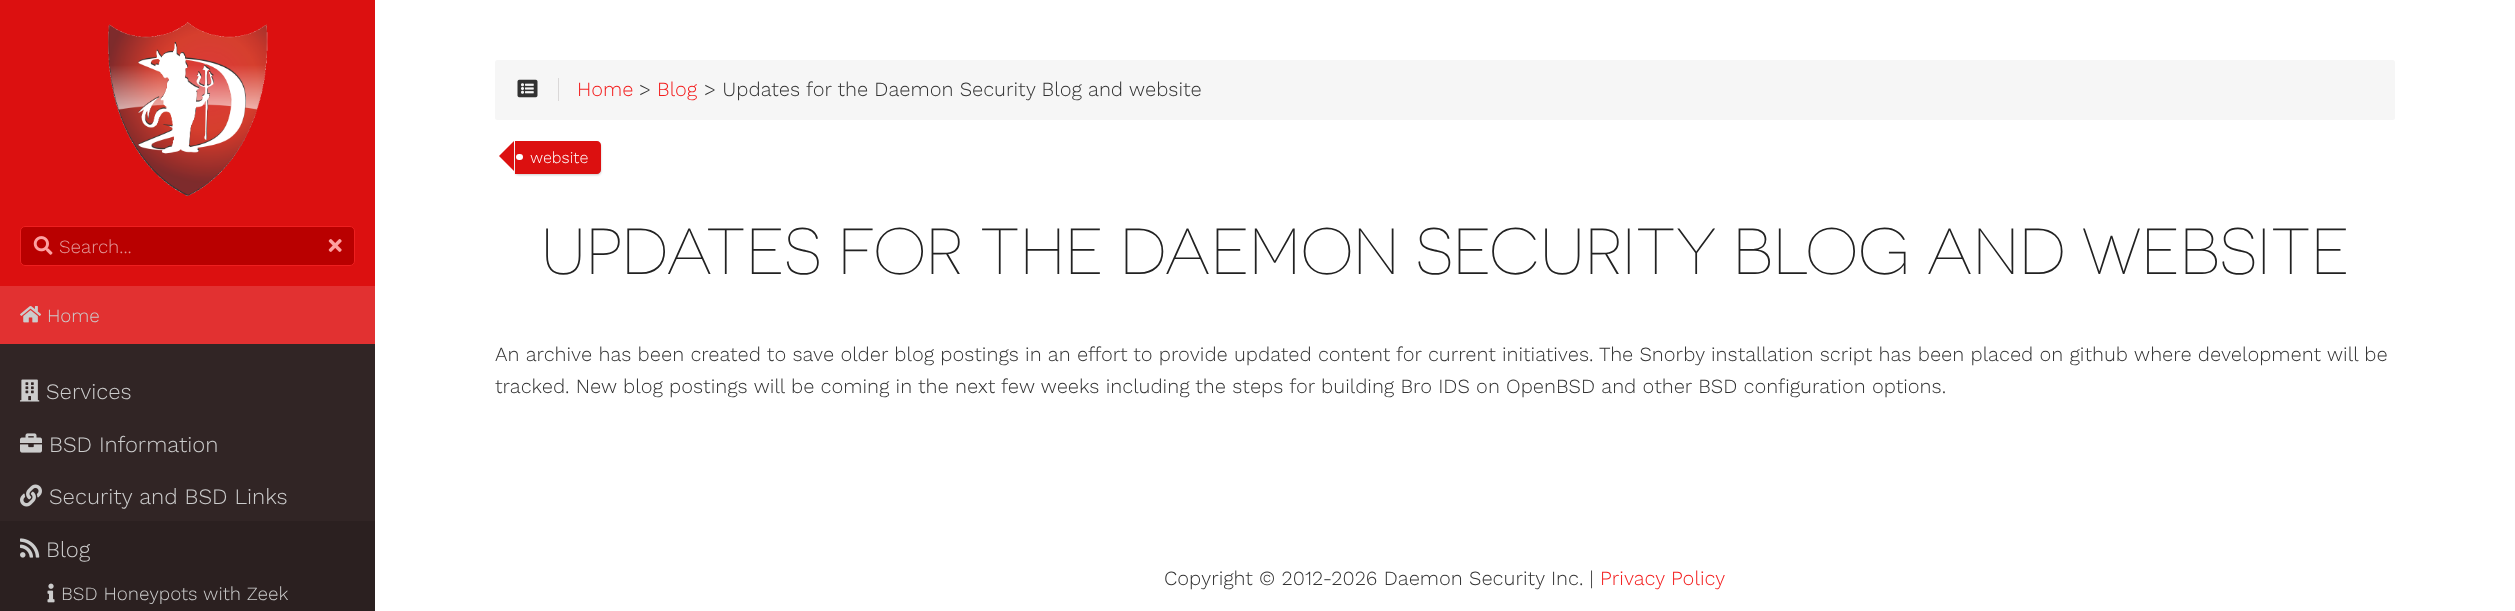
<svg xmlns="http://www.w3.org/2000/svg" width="2515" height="611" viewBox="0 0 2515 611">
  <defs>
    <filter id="blur1" x="-50%" y="-200%" width="200%" height="500%"><feGaussianBlur stdDeviation="1"/></filter>
  </defs>
  <rect width="100%" height="100%" fill="#ffffff"/>
  <rect x="0" y="344" width="375" height="177" fill="#312525"/>
  <rect x="0" y="0" width="375" height="286" fill="#dc1010"/>
  <rect x="0" y="286" width="375" height="58" fill="#e23131"/>
  <image x="108" y="22" width="160" height="174" href="img1.png"/>
  <rect x="20.5" y="226.5" width="334" height="39" rx="4.5" fill="#b90000" stroke="#ef2020"/>
  <image x="33" y="236" width="20" height="19" href="img2.png"/>
  <text x="59" y="253" font-family="Work Sans" font-size="18.75" font-weight="300" fill="#e39999">Search...</text>
  <image x="328" y="239" width="14" height="13" href="img3.png"/>
  <image x="20" y="306" width="21" height="17" href="img4.png"/>
  <text x="47" y="322" font-family="Work Sans" font-size="18.75" font-weight="300" fill="#cccccc">Home</text>
  <image x="20" y="379" width="20" height="23" href="img5.png"/>
  <text x="46" y="399" font-family="Work Sans" font-size="22" font-weight="300" fill="#cccccc">Services</text>
  <image x="20" y="433" width="22" height="20" href="img6.png"/>
  <text x="49" y="452" font-family="Work Sans" font-size="22" font-weight="300" fill="#cccccc">BSD Information</text>
  <image x="20" y="484" width="22" height="23" href="img7.png"/>
  <text x="49" y="504" font-family="Work Sans" font-size="22" font-weight="300" fill="#cccccc">Security and BSD Links</text>
  <rect x="0" y="521" width="375" height="90" fill="#2b2020"/>
  <image x="20" y="538" width="20" height="20" href="img8.png"/>
  <text x="46" y="557" font-family="Work Sans" font-size="22" font-weight="300" fill="#cccccc">Blog</text>
  <image x="47" y="583" width="8" height="20" href="img9.png"/>
  <text x="61" y="600" font-family="Work Sans" font-size="18.75" font-weight="300" fill="#cccccc">BSD Honeypots with Zeek</text>
  <rect x="495" y="60" width="1900" height="60" rx="2.5" fill="#f6f6f6"/>
  <rect x="558" y="78" width="1" height="23" fill="#dad8d8"/>
  <image x="517" y="79" width="21" height="19" href="img10.png"/>
  <text x="577" y="96" font-family="Work Sans" font-size="20" font-weight="300" fill="#f31c1c">Home</text>
  <text x="639" y="96" font-family="Work Sans" font-size="20" font-weight="300" fill="#323232">&gt;</text>
  <text x="657" y="96" font-family="Work Sans" font-size="20" font-weight="300" fill="#f31c1c">Blog</text>
  <text x="704" y="96" font-family="Work Sans" font-size="20" font-weight="300" fill="#323232">&gt; Updates for the Daemon Security Blog and website</text>
  <rect x="515" y="143" width="86" height="32" rx="4" fill="#000000" fill-opacity="0.2" filter="url(#blur1)"/>
  <path d="M515 141H597C599 141 601 143 601 145V170C601 172 599 174 597 174H515Z" fill="#dc1010"/>
  <path d="M514 141V171L499 156Z" fill="#dc1010"/>
  <rect x="516" y="154" width="7" height="6" rx="3" fill="#ffffff"/>
  <text x="530" y="163" font-family="Work Sans" font-size="16" font-weight="300" fill="#ffffff">website</text>
  <text x="541" y="274" font-family="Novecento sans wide" font-size="65" font-weight="200" fill="#222222">UPDATES FOR THE DAEMON SECURITY BLOG AND WEBSITE</text>
  <text x="495" y="361" font-family="Work Sans" font-size="20" font-weight="300" fill="#323232">An archive has been created to save older blog postings in an effort to provide updated content for current initiatives. The Snorby installation script has been placed on github where development will be</text>
  <text x="495" y="393" font-family="Work Sans" font-size="20" font-weight="300" fill="#323232">tracked. New blog postings will be coming in the next few weeks including the steps for building Bro IDS on OpenBSD and other BSD configuration options.</text>
  <text x="1164" y="585" font-family="Work Sans" font-size="20" font-weight="300" fill="#323232">Copyright © 2012-2026 Daemon Security Inc. |</text>
  <text x="1600" y="585" font-family="Work Sans" font-size="20" font-weight="300" fill="#f31c1c">Privacy Policy</text>
</svg>
